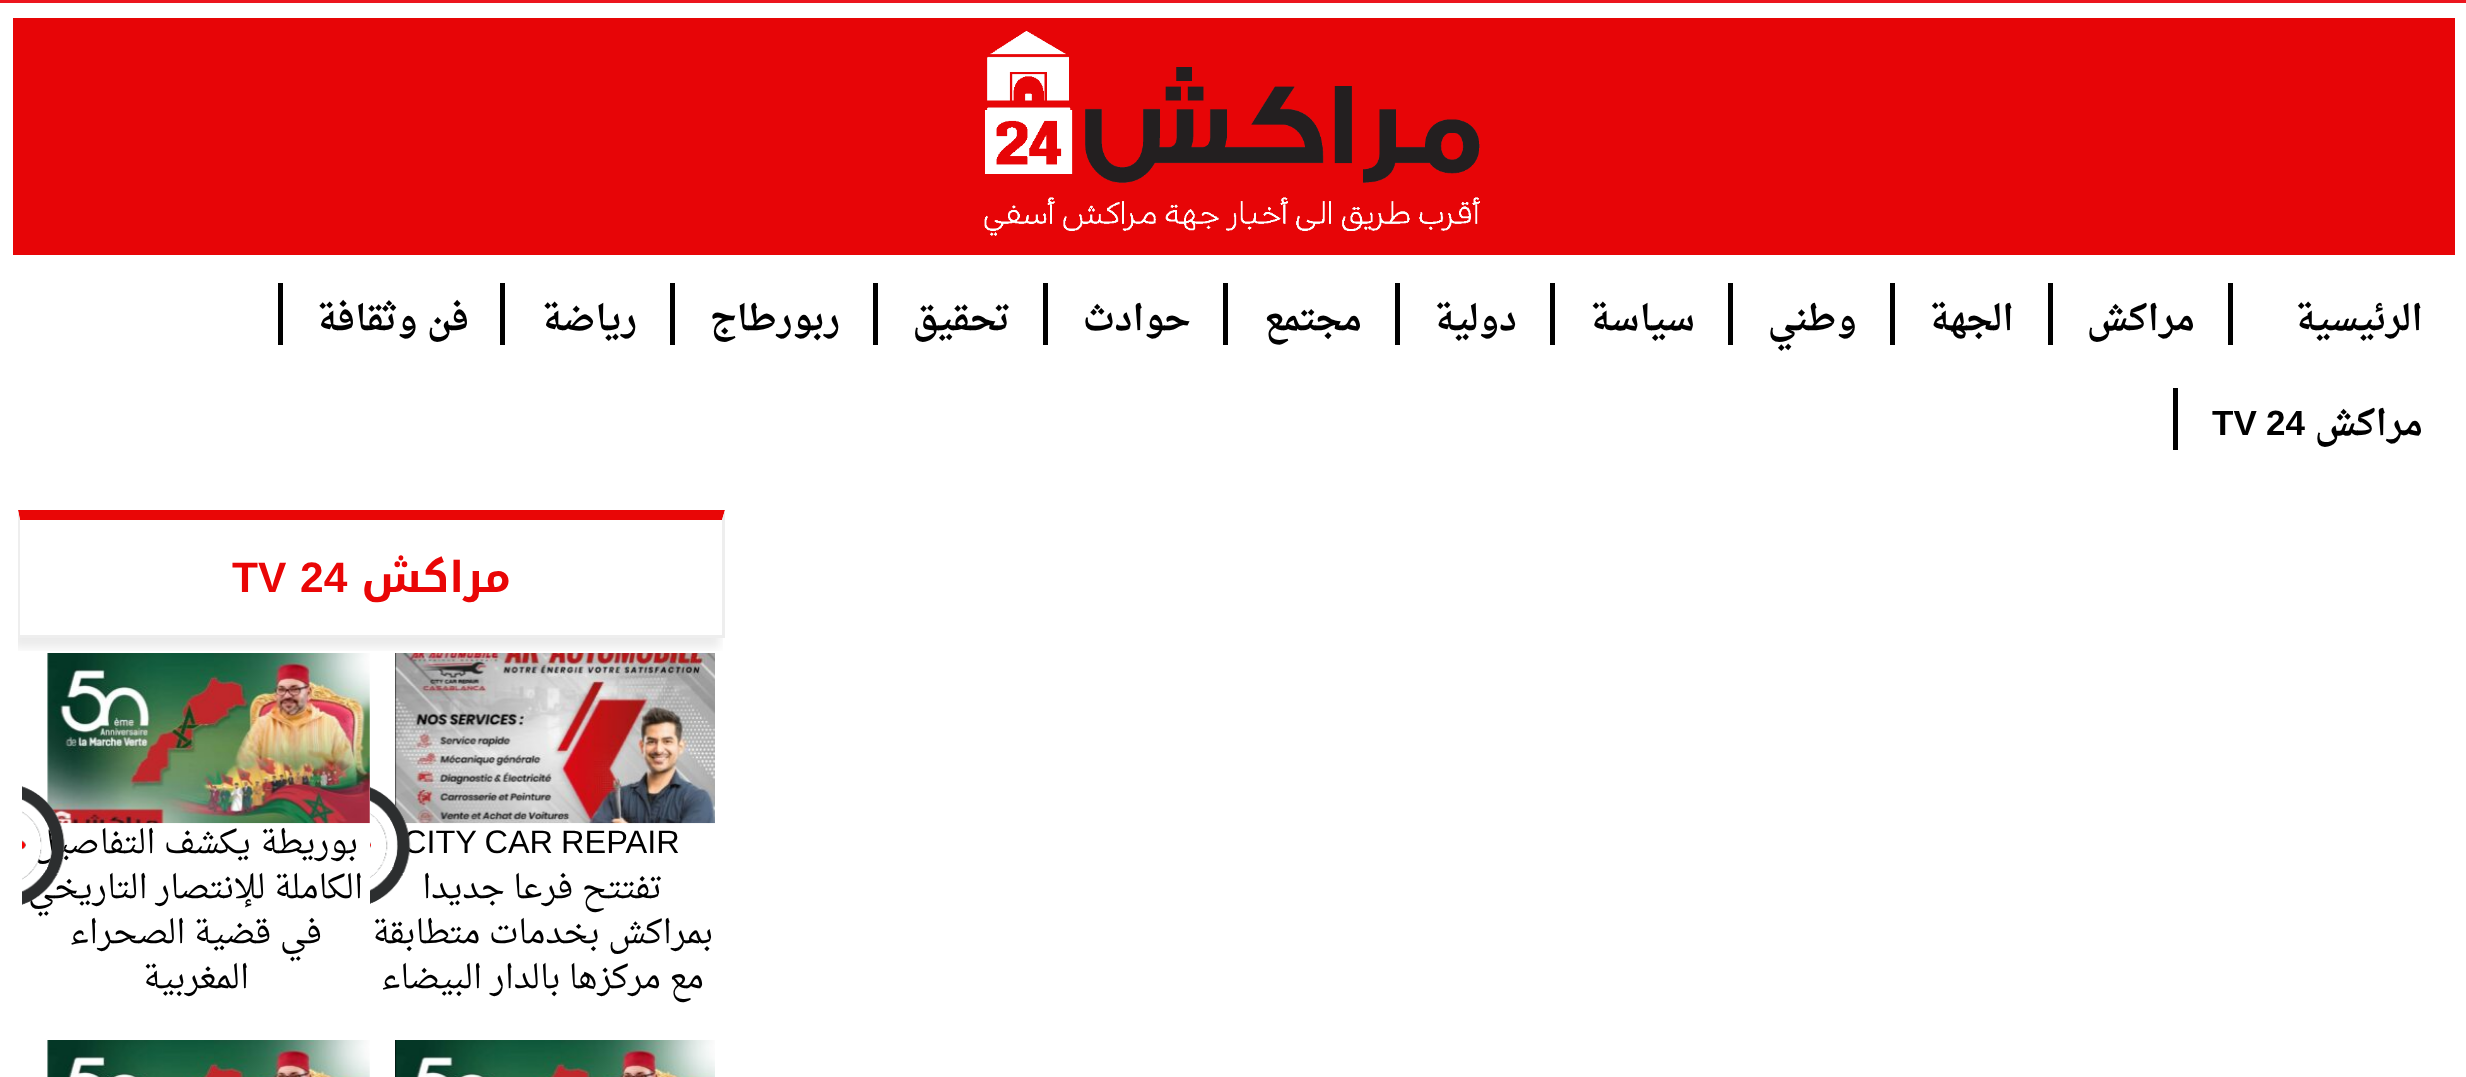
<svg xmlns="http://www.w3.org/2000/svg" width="2466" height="1077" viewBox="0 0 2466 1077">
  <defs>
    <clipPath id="clip1"><rect x="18" y="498" width="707" height="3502"/></clipPath>
    <clipPath id="clip2"><rect x="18" y="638" width="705" height="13"/></clipPath>
    <filter id="blur1" x="-50%" y="-200%" width="200%" height="500%"><feGaussianBlur stdDeviation="5"/></filter>
  </defs>
  <rect width="100%" height="100%" fill="#ffffff"/>
  <rect x="0" y="0" width="2466" height="3" fill="#ec151e"/>
  <rect x="13" y="18" width="2442" height="237" fill="#e70507"/>
  <image x="984" y="31" width="496" height="205" href="img1.png"/>
  <rect x="2228" y="283" width="5" height="62" fill="#000000"/>
  <text x="2423" y="330" font-family="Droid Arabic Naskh" font-size="35" font-weight="bold" direction="rtl" fill="#000000">الرئيسية</text>
  <rect x="2048" y="283" width="5" height="62" fill="#000000"/>
  <text x="2195" y="330" font-family="Droid Arabic Naskh" font-size="35" font-weight="bold" direction="rtl" fill="#000000">مراكش</text>
  <rect x="1890" y="283" width="5" height="62" fill="#000000"/>
  <text x="2014" y="330" font-family="Droid Arabic Naskh" font-size="35" font-weight="bold" direction="rtl" fill="#000000">الجهة</text>
  <rect x="1728" y="283" width="5" height="62" fill="#000000"/>
  <text x="1857" y="330" font-family="Droid Arabic Naskh" font-size="35" font-weight="bold" direction="rtl" fill="#000000">وطني</text>
  <rect x="1550" y="283" width="5" height="62" fill="#000000"/>
  <text x="1695" y="330" font-family="Droid Arabic Naskh" font-size="35" font-weight="bold" direction="rtl" fill="#000000">سياسة</text>
  <rect x="1395" y="283" width="5" height="62" fill="#000000"/>
  <text x="1517" y="330" font-family="Droid Arabic Naskh" font-size="35" font-weight="bold" direction="rtl" fill="#000000">دولية</text>
  <rect x="1223" y="283" width="5" height="62" fill="#000000"/>
  <text x="1362" y="330" font-family="Droid Arabic Naskh" font-size="35" font-weight="bold" direction="rtl" fill="#000000">مجتمع</text>
  <rect x="1043" y="283" width="5" height="62" fill="#000000"/>
  <text x="1191" y="330" font-family="Droid Arabic Naskh" font-size="35" font-weight="bold" direction="rtl" fill="#000000">حوادث</text>
  <rect x="873" y="283" width="5" height="62" fill="#000000"/>
  <text x="1010" y="330" font-family="Droid Arabic Naskh" font-size="35" font-weight="bold" direction="rtl" fill="#000000">تحقيق</text>
  <rect x="670" y="283" width="5" height="62" fill="#000000"/>
  <text x="840" y="330" font-family="Droid Arabic Naskh" font-size="35" font-weight="bold" direction="rtl" fill="#000000">ربورطاج</text>
  <rect x="500" y="283" width="5" height="62" fill="#000000"/>
  <text x="637" y="330" font-family="Droid Arabic Naskh" font-size="35" font-weight="bold" direction="rtl" fill="#000000">رياضة</text>
  <rect x="278" y="283" width="5" height="62" fill="#000000"/>
  <text x="469" y="330" font-family="Droid Arabic Naskh" font-size="35" font-weight="bold" direction="rtl" fill="#000000">فن وثقافة</text>
  <rect x="2173" y="388" width="5" height="62" fill="#000000"/>
  <text x="2423" y="435" font-family="Droid Arabic Naskh" font-size="35" font-weight="bold" direction="rtl" fill="#000000">مراكش</text>
  <text x="2266" y="435" font-family="Liberation Sans" font-size="35" font-weight="bold" fill="#000000">24</text>
  <text x="2212" y="435" font-family="Liberation Sans" font-size="35" font-weight="bold" fill="#000000">TV</text>
  <g clip-path="url(#clip1)">
    <g clip-path="url(#clip2)">
      <rect x="13" y="520" width="707" height="128" fill="#000000" fill-opacity="0.08" filter="url(#blur1)"/>
    </g>
  </g>
  <path d="M18 510H725L722 520H20Z" fill="#e90606"/>
  <path d="M725 510V638L722 635V520Z" fill="#eeeeee"/>
  <rect x="18" y="635" width="707" height="3" fill="#eeeeee"/>
  <path d="M18 638V510L20 520V635Z" fill="#eeeeee"/>
  <text x="511" y="592" font-family="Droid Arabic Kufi" font-size="42.5" font-weight="bold" direction="rtl" fill="#e90606">مراكش</text>
  <text x="300" y="592" font-family="Liberation Sans" font-size="42.5" font-weight="bold" fill="#e90606">24</text>
  <text x="232" y="592" font-family="Liberation Sans" font-size="42.5" font-weight="bold" fill="#e90606">TV</text>
  <rect x="395" y="653" width="2" height="156" fill="#000000"/>
  <image x="395" y="653" width="320" height="171" href="img2.png"/>
  <text x="403" y="853" word-spacing="-1" font-family="Liberation Sans" font-size="32.5" fill="#000000">CITY CAR REPAIR</text>
  <image x="370" y="786" width="41" height="118" href="img3.png"/>
  <text x="663" y="898" font-family="Droid Arabic Naskh" font-size="32.5" direction="rtl" fill="#000000">تفتتح فرعا جديدا</text>
  <text x="713" y="943" font-family="Droid Arabic Naskh" font-size="32.5" direction="rtl" fill="#000000">بمراكش بخدمات متطابقة</text>
  <text x="704" y="988" font-family="Droid Arabic Naskh" font-size="32.5" direction="rtl" fill="#000000">مع مركزها بالدار البيضاء</text>
  <image x="47" y="653" width="323" height="171" href="img4.png"/>
  <text x="251" y="853" font-family="Droid Arabic Naskh" font-size="32.5" direction="rtl" fill="#000000">يكشف التفاصيل</text>
  <text x="363" y="898" font-family="Droid Arabic Naskh" font-size="32.5" direction="rtl" fill="#000000">الكاملة للإنتصار التاريخي</text>
  <image x="22" y="786" width="43" height="119" href="img5.png"/>
  <text x="358" y="853" font-family="Droid Arabic Naskh" font-size="32.5" direction="rtl" fill="#000000">بوريطة</text>
  <text x="322" y="943" font-family="Droid Arabic Naskh" font-size="32.5" direction="rtl" fill="#000000">في قضية الصحراء</text>
  <text x="249" y="988" font-family="Droid Arabic Naskh" font-size="32.5" direction="rtl" fill="#000000">المغربية</text>
  <rect x="395" y="1040" width="2" height="37" fill="#000000"/>
  <image x="395" y="1040" width="320" height="37" href="img6.png"/>
  <image x="47" y="1040" width="323" height="37" href="img7.png"/>
</svg>
